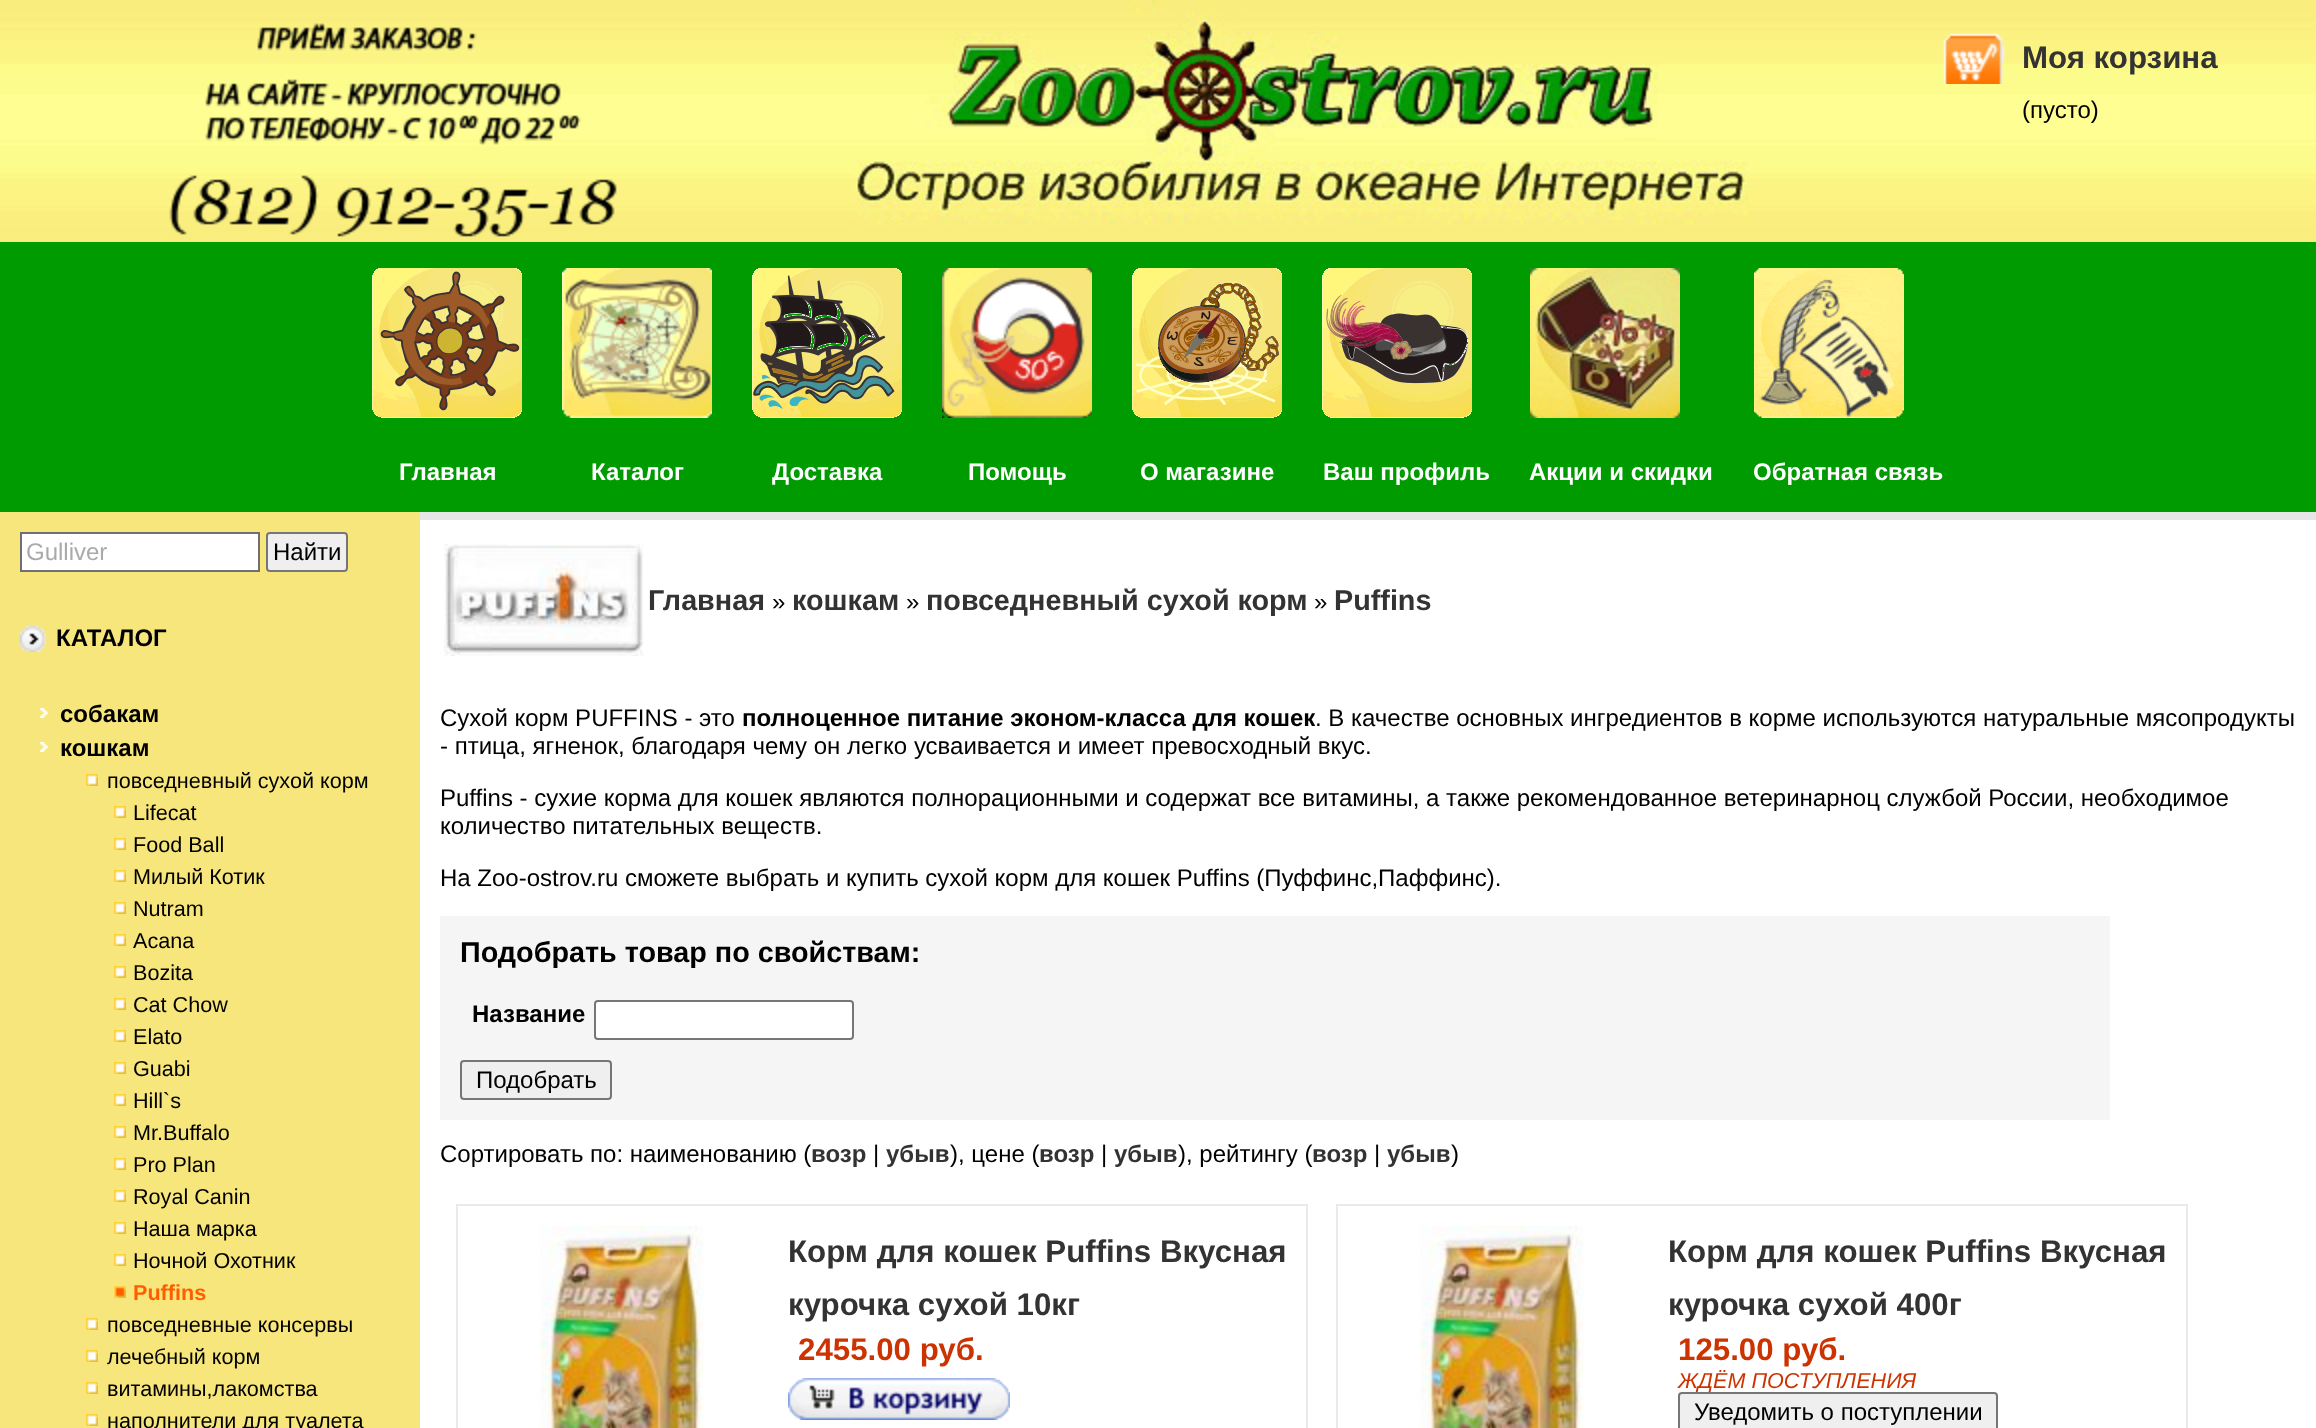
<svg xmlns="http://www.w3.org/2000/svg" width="2316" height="1428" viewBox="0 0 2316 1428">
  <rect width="100%" height="100%" fill="#ffffff"/>
  <image x="0" y="0" width="2316" height="242" href="img1.png"/>
  <image x="169" y="0" width="1579" height="237" href="img2.png"/>
  <image x="1916" y="0" width="400" height="192" href="img3.png"/>
  <image x="1943" y="33" width="62" height="51" href="img4.png"/>
  <text x="2022" y="68" font-family="Liberation Sans" font-size="31.25" font-weight="bold" fill="#333333">Моя корзина</text>
  <text x="2022" y="118" font-family="Liberation Sans" font-size="24" fill="#000000">(пусто)</text>
  <rect x="0" y="242" width="2316" height="270" fill="#009b00"/>
  <image x="372" y="268" width="150" height="150" href="img5.png"/>
  <image x="562" y="268" width="150" height="150" href="img6.png"/>
  <image x="752" y="268" width="150" height="150" href="img7.png"/>
  <image x="942" y="268" width="150" height="150" href="img8.png"/>
  <image x="1132" y="268" width="150" height="150" href="img9.png"/>
  <image x="1322" y="268" width="150" height="150" href="img10.png"/>
  <image x="1530" y="268" width="150" height="150" href="img11.png"/>
  <image x="1754" y="268" width="150" height="150" href="img12.png"/>
  <text x="399" y="480" font-family="Liberation Sans" font-size="24" font-weight="bold" fill="#ffffff">Главная</text>
  <text x="591" y="480" font-family="Liberation Sans" font-size="24" font-weight="bold" fill="#ffffff">Каталог</text>
  <text x="772" y="480" font-family="Liberation Sans" font-size="24" font-weight="bold" fill="#ffffff">Доставка</text>
  <text x="968" y="480" font-family="Liberation Sans" font-size="24" font-weight="bold" fill="#ffffff">Помощь</text>
  <text x="1140" y="480" font-family="Liberation Sans" font-size="24" font-weight="bold" fill="#ffffff">О магазине</text>
  <text x="1323" y="480" font-family="Liberation Sans" font-size="24" font-weight="bold" fill="#ffffff">Ваш профиль</text>
  <text x="1529" y="480" font-family="Liberation Sans" font-size="24" font-weight="bold" fill="#ffffff">Акции и скидки</text>
  <text x="1753" y="480" font-family="Liberation Sans" font-size="24" font-weight="bold" fill="#ffffff">Обратная связь</text>
  <rect x="0" y="512" width="420" height="916" fill="#f7e67b"/>
  <rect x="21" y="533" width="238" height="38" fill="#ffffff" stroke="#707070" stroke-width="2"/>
  <text x="26" y="560" font-family="Liberation Sans" font-size="24" fill="#aaaaaa">Gulliver</text>
  <rect x="267" y="533" width="80" height="38" rx="3" fill="#efefef" stroke="#767676" stroke-width="2"/>
  <text x="273" y="560" font-family="Liberation Sans" font-size="24" fill="#000000">Найти</text>
  <image x="20" y="626" width="26" height="26" href="img13.png"/>
  <text x="56" y="646" font-family="Liberation Sans" font-size="24" font-weight="bold" fill="#000000">КАТАЛОГ</text>
  <image x="40" y="708" width="8" height="10" href="img14.png"/>
  <text x="60" y="722" font-family="Liberation Sans" font-size="24" font-weight="bold" fill="#000000">собакам</text>
  <image x="40" y="742" width="8" height="10" href="img14.png"/>
  <text x="60" y="756" font-family="Liberation Sans" font-size="24" font-weight="bold" fill="#000000">кошкам</text>
  <image x="86" y="774" width="12" height="12" href="img15.png"/>
  <text x="107" y="788" font-family="Liberation Sans" font-size="21.6" fill="#000000">повседневный сухой корм</text>
  <image x="114" y="806" width="12" height="12" href="img15.png"/>
  <text x="133" y="820" font-family="Liberation Sans" font-size="21.6" fill="#000000">Lifecat</text>
  <image x="114" y="838" width="12" height="12" href="img15.png"/>
  <text x="133" y="852" font-family="Liberation Sans" font-size="21.6" fill="#000000">Food Ball</text>
  <image x="114" y="870" width="12" height="12" href="img15.png"/>
  <text x="133" y="884" font-family="Liberation Sans" font-size="21.6" fill="#000000">Милый Котик</text>
  <image x="114" y="902" width="12" height="12" href="img15.png"/>
  <text x="133" y="916" font-family="Liberation Sans" font-size="21.6" fill="#000000">Nutram</text>
  <image x="114" y="934" width="12" height="12" href="img15.png"/>
  <text x="133" y="948" font-family="Liberation Sans" font-size="21.6" fill="#000000">Acana</text>
  <image x="114" y="966" width="12" height="12" href="img15.png"/>
  <text x="133" y="980" font-family="Liberation Sans" font-size="21.6" fill="#000000">Bozita</text>
  <image x="114" y="998" width="12" height="12" href="img15.png"/>
  <text x="133" y="1012" font-family="Liberation Sans" font-size="21.6" fill="#000000">Cat Chow</text>
  <image x="114" y="1030" width="12" height="12" href="img15.png"/>
  <text x="133" y="1044" font-family="Liberation Sans" font-size="21.6" fill="#000000">Elato</text>
  <image x="114" y="1062" width="12" height="12" href="img15.png"/>
  <text x="133" y="1076" font-family="Liberation Sans" font-size="21.6" fill="#000000">Guabi</text>
  <image x="114" y="1094" width="12" height="12" href="img15.png"/>
  <text x="133" y="1108" font-family="Liberation Sans" font-size="21.6" fill="#000000">Hill`s</text>
  <image x="114" y="1126" width="12" height="12" href="img15.png"/>
  <text x="133" y="1140" font-family="Liberation Sans" font-size="21.6" fill="#000000">Mr.Buffalo</text>
  <image x="114" y="1158" width="12" height="12" href="img15.png"/>
  <text x="133" y="1172" font-family="Liberation Sans" font-size="21.6" fill="#000000">Pro Plan</text>
  <image x="114" y="1190" width="12" height="12" href="img15.png"/>
  <text x="133" y="1204" font-family="Liberation Sans" font-size="21.6" fill="#000000">Royal Canin</text>
  <image x="114" y="1222" width="12" height="12" href="img15.png"/>
  <text x="133" y="1236" font-family="Liberation Sans" font-size="21.6" fill="#000000">Наша марка</text>
  <image x="114" y="1254" width="12" height="12" href="img15.png"/>
  <text x="133" y="1268" font-family="Liberation Sans" font-size="21.6" fill="#000000">Ночной Охотник</text>
  <image x="114" y="1286" width="12" height="12" href="img16.png"/>
  <text x="133" y="1300" font-family="Liberation Sans" font-size="21.6" font-weight="bold" fill="#ff5e00">Puffins</text>
  <image x="86" y="1318" width="12" height="12" href="img15.png"/>
  <text x="107" y="1332" font-family="Liberation Sans" font-size="21.6" fill="#000000">повседневные консервы</text>
  <image x="86" y="1350" width="12" height="12" href="img15.png"/>
  <text x="107" y="1364" font-family="Liberation Sans" font-size="21.6" fill="#000000">лечебный корм</text>
  <image x="86" y="1382" width="12" height="12" href="img15.png"/>
  <text x="107" y="1396" font-family="Liberation Sans" font-size="21.6" fill="#000000">витамины,лакомства</text>
  <image x="86" y="1414" width="12" height="12" href="img15.png"/>
  <text x="107" y="1428" font-family="Liberation Sans" font-size="21.6" fill="#000000">наполнители для туалета</text>
  <rect x="420" y="512" width="1896" height="8" fill="#e6e6e6"/>
  <image x="444" y="544" width="200" height="112" href="img17.png"/>
  <text x="648" y="610" font-family="Liberation Sans" font-size="28.75" font-weight="bold" fill="#333333">Главная</text>
  <text x="772" y="610" font-family="Liberation Sans" font-size="24" fill="#000000">»</text>
  <text x="792" y="610" font-family="Liberation Sans" font-size="28.75" font-weight="bold" fill="#333333">кошкам</text>
  <text x="906" y="610" font-family="Liberation Sans" font-size="24" fill="#000000">»</text>
  <text x="926" y="610" font-family="Liberation Sans" font-size="28.75" font-weight="bold" fill="#333333">повседневный сухой корм</text>
  <text x="1314" y="610" font-family="Liberation Sans" font-size="24" fill="#000000">»</text>
  <text x="1334" y="610" font-family="Liberation Sans" font-size="28.75" font-weight="bold" fill="#333333">Puffins</text>
  <text x="440" y="726" font-family="Liberation Sans" font-size="24" fill="#000000">Сухой корм PUFFINS - это</text>
  <text x="742" y="726" font-family="Liberation Sans" font-size="24" font-weight="bold" fill="#000000">полноценное питание эконом-класса для кошек</text>
  <text x="1315" y="726" font-family="Liberation Sans" font-size="24" fill="#000000">. В качестве основных ингредиентов в корме используются натуральные мясопродукты</text>
  <text x="440" y="754" font-family="Liberation Sans" font-size="24" fill="#000000">- птица, ягненок, благодаря чему он легко усваивается и имеет превосходный вкус.</text>
  <text x="440" y="806" font-family="Liberation Sans" font-size="24" fill="#000000">Puffins - сухие корма для кошек являются полнорационными и содержат все витамины, а также рекомендованное ветеринарноц службой России, необходимое</text>
  <text x="440" y="834" font-family="Liberation Sans" font-size="24" fill="#000000">количество питательных веществ.</text>
  <text x="440" y="886" font-family="Liberation Sans" font-size="24" fill="#000000">На Zoo-ostrov.ru сможете выбрать и купить сухой корм для кошек Puffins (Пуффинс,Паффинс).</text>
  <rect x="440" y="916" width="1670" height="204" fill="#f5f5f5"/>
  <text x="460" y="962" font-family="Liberation Sans" font-size="28.75" font-weight="bold" fill="#000000">Подобрать товар по свойствам:</text>
  <text x="472" y="1022" font-family="Liberation Sans" font-size="24" font-weight="bold" fill="#000000">Название</text>
  <rect x="595" y="1001" width="258" height="38" rx="3" fill="#ffffff" stroke="#767676" stroke-width="2"/>
  <rect x="461" y="1061" width="150" height="38" rx="3" fill="#efefef" stroke="#767676" stroke-width="2"/>
  <text x="476" y="1088" font-family="Liberation Sans" font-size="24" fill="#000000">Подобрать</text>
  <text x="440" y="1162" font-family="Liberation Sans" font-size="24" fill="#000000">Сортировать по: наименованию (</text>
  <text x="811" y="1162" font-family="Liberation Sans" font-size="24" font-weight="bold" fill="#333333">возр</text>
  <text x="873" y="1162" font-family="Liberation Sans" font-size="24" fill="#000000">|</text>
  <text x="886" y="1162" font-family="Liberation Sans" font-size="24" font-weight="bold" fill="#333333">убыв</text>
  <text x="950" y="1162" font-family="Liberation Sans" font-size="24" fill="#000000">), цене (</text>
  <text x="1039" y="1162" font-family="Liberation Sans" font-size="24" font-weight="bold" fill="#333333">возр</text>
  <text x="1101" y="1162" font-family="Liberation Sans" font-size="24" fill="#000000">|</text>
  <text x="1114" y="1162" font-family="Liberation Sans" font-size="24" font-weight="bold" fill="#333333">убыв</text>
  <text x="1178" y="1162" font-family="Liberation Sans" font-size="24" fill="#000000">), рейтингу (</text>
  <text x="1312" y="1162" font-family="Liberation Sans" font-size="24" font-weight="bold" fill="#333333">возр</text>
  <text x="1374" y="1162" font-family="Liberation Sans" font-size="24" fill="#000000">|</text>
  <text x="1387" y="1162" font-family="Liberation Sans" font-size="24" font-weight="bold" fill="#333333">убыв</text>
  <text x="1451" y="1162" font-family="Liberation Sans" font-size="24" fill="#000000">)</text>
  <rect x="457" y="1205" width="850" height="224" fill="none" stroke="#eaeaea" stroke-width="2"/>
  <image x="540" y="1226" width="164" height="202" href="img18.png"/>
  <text x="788" y="1262" font-family="Liberation Sans" font-size="31.25" font-weight="bold" fill="#333333">Корм для кошек Puffins Вкусная</text>
  <text x="788" y="1315" font-family="Liberation Sans" font-size="31.25" font-weight="bold" fill="#333333">курочка сухой 10кг</text>
  <text x="798" y="1360" font-family="Liberation Sans" font-size="31.25" font-weight="bold" fill="#cc3300">2455.00 руб.</text>
  <image x="788" y="1378" width="222" height="42" href="img19.png"/>
  <rect x="1337" y="1205" width="850" height="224" fill="none" stroke="#eaeaea" stroke-width="2"/>
  <image x="1420" y="1226" width="164" height="202" href="img18.png"/>
  <text x="1668" y="1262" font-family="Liberation Sans" font-size="31.25" font-weight="bold" fill="#333333">Корм для кошек Puffins Вкусная</text>
  <text x="1668" y="1315" font-family="Liberation Sans" font-size="31.25" font-weight="bold" fill="#333333">курочка сухой 400г</text>
  <text x="1678" y="1360" font-family="Liberation Sans" font-size="31.25" font-weight="bold" fill="#cc3300">125.00 руб.</text>
  <text x="1678" y="1388" font-family="Liberation Sans" font-size="21.6" font-style="italic" fill="#cc3300">ЖДЁМ ПОСТУПЛЕНИЯ</text>
  <rect x="1679" y="1393" width="318" height="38" rx="3" fill="#efefef" stroke="#767676" stroke-width="2"/>
  <text x="1694" y="1420" font-family="Liberation Sans" font-size="24" fill="#000000">Уведомить о поступлении</text>
</svg>
